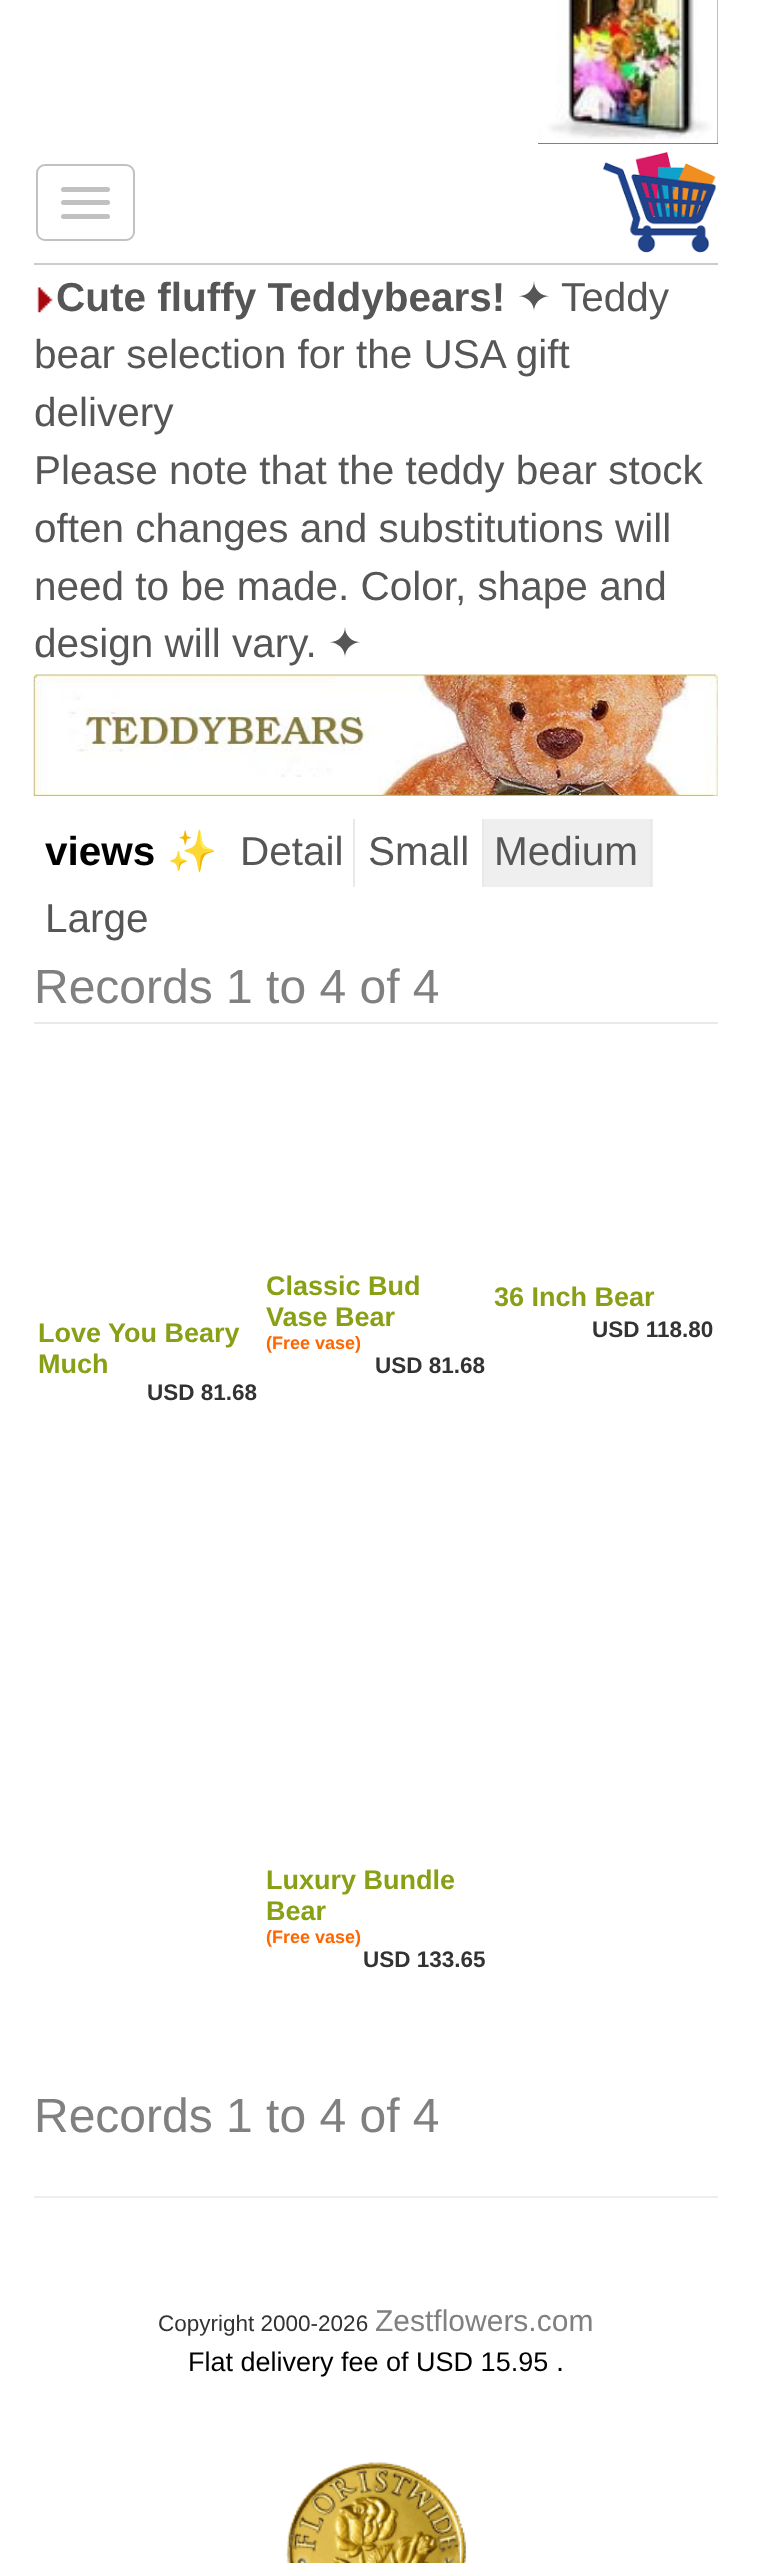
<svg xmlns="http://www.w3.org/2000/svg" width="761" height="2563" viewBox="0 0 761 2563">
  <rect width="100%" height="100%" fill="#ffffff"/>
  <rect x="538" y="0" width="180" height="144" fill="#000000"/>
  <image x="538" y="0" width="180" height="144" href="img1.png"/>
  <rect x="37" y="165" width="97" height="75" rx="8" fill="none" stroke="#c1c1c1" stroke-width="2"/>
  <rect x="61" y="187" width="49" height="5" rx="2.5" fill="#c1c1c1"/>
  <rect x="61" y="200" width="49" height="5" rx="2.5" fill="#c1c1c1"/>
  <rect x="61" y="214" width="49" height="5" rx="2.5" fill="#c1c1c1"/>
  <image x="603" y="152" width="113" height="101" href="img2.png"/>
  <rect x="34" y="263" width="684" height="2" fill="#cccccc"/>
  <image x="37" y="287" width="16" height="26" href="img3.png"/>
  <text x="56" y="311" font-family="Liberation Sans" font-size="40.5" font-weight="bold" fill="#565656">Cute fluffy Teddybears!</text>
  <text x="517" y="311" font-family="DejaVu Sans" font-size="40.5" fill="#565656">✦</text>
  <text x="561" y="311" font-family="Liberation Sans" font-size="40.5" fill="#565656">Teddy</text>
  <text x="34" y="368" font-family="Liberation Sans" font-size="40.5" fill="#565656">bear selection for the USA gift</text>
  <text x="34" y="426" font-family="Liberation Sans" font-size="40.5" fill="#565656">delivery</text>
  <text x="34" y="484" font-family="Liberation Sans" font-size="40.5" fill="#565656">Please note that the teddy bear stock</text>
  <text x="34" y="542" font-family="Liberation Sans" font-size="40.5" fill="#565656">often changes and substitutions will</text>
  <text x="34" y="600" font-family="Liberation Sans" font-size="40.5" fill="#565656">need to be made. Color, shape and</text>
  <text x="34" y="657" font-family="Liberation Sans" font-size="40.5" fill="#565656">design will vary.</text>
  <text x="328" y="657" font-family="DejaVu Sans" font-size="40.5" fill="#565656">✦</text>
  <image x="33" y="674" width="685" height="122" href="img4.png"/>
  <rect x="34" y="1022" width="684" height="2" fill="#e9e9e9"/>
  <text x="45" y="865" font-family="Liberation Sans" font-size="40.5" font-weight="bold" fill="#000000">views</text>
  <text x="167" y="865" font-family="Noto Color Emoji" font-size="40.5" font-weight="bold" fill="#000000">✨</text>
  <rect x="353" y="819" width="2" height="68" fill="#e9e9e9"/>
  <text x="240" y="865" font-family="Liberation Sans" font-size="40.5" fill="#565656">Detail</text>
  <rect x="482" y="819" width="2" height="68" fill="#e9e9e9"/>
  <text x="368" y="865" font-family="Liberation Sans" font-size="40.5" fill="#565656">Small</text>
  <rect x="484" y="819" width="169" height="68" fill="#efefef"/>
  <rect x="650" y="819" width="2" height="68" fill="#e9e9e9"/>
  <text x="494" y="865" font-family="Liberation Sans" font-size="40.5" fill="#565656">Medium</text>
  <text x="45" y="932" font-family="Liberation Sans" font-size="40.5" fill="#565656">Large</text>
  <text x="34" y="1003" font-family="Liberation Sans" font-size="48" fill="#808080">Records 1 to 4 of 4</text>
  <text x="266" y="1295" font-family="Liberation Sans" font-size="27" font-weight="bold" fill="#88a016">Classic Bud</text>
  <text x="266" y="1326" font-family="Liberation Sans" font-size="27" font-weight="bold" fill="#88a016">Vase Bear</text>
  <text x="266" y="1349" font-family="Liberation Sans" font-size="18" font-weight="bold" fill="#ff6600">(Free vase)</text>
  <text x="375" y="1373" font-family="Liberation Sans" font-size="22.5" font-weight="bold" fill="#333333">USD 81.68</text>
  <text x="494" y="1306" font-family="Liberation Sans" font-size="27" font-weight="bold" fill="#88a016">36 Inch Bear</text>
  <text x="592" y="1337" font-family="Liberation Sans" font-size="22.5" font-weight="bold" fill="#333333">USD 118.80</text>
  <text x="38" y="1342" font-family="Liberation Sans" font-size="27" font-weight="bold" fill="#88a016">Love You Beary</text>
  <text x="38" y="1373" font-family="Liberation Sans" font-size="27" font-weight="bold" fill="#88a016">Much</text>
  <text x="147" y="1400" font-family="Liberation Sans" font-size="22.5" font-weight="bold" fill="#333333">USD 81.68</text>
  <text x="266" y="1889" font-family="Liberation Sans" font-size="27" font-weight="bold" fill="#88a016">Luxury Bundle</text>
  <text x="266" y="1920" font-family="Liberation Sans" font-size="27" font-weight="bold" fill="#88a016">Bear</text>
  <text x="266" y="1943" font-family="Liberation Sans" font-size="18" font-weight="bold" fill="#ff6600">(Free vase)</text>
  <text x="363" y="1967" font-family="Liberation Sans" font-size="22.5" font-weight="bold" fill="#333333">USD 133.65</text>
  <text x="34" y="2132" font-family="Liberation Sans" font-size="48" fill="#808080">Records 1 to 4 of 4</text>
  <rect x="34" y="2196" width="684" height="2" fill="#eeeeee"/>
  <text x="158" y="2331" font-family="Liberation Sans" font-size="22.5" fill="#333333">Copyright 2000-2026</text>
  <text x="375" y="2331" font-family="Liberation Sans" font-size="30" fill="#808080">Zestflowers.com</text>
  <text x="188" y="2371" font-family="Liberation Sans" font-size="27" fill="#000000">Flat delivery fee of USD 15.95</text>
  <text x="556" y="2371" font-family="Liberation Sans" font-size="29" fill="#000000">.</text>
  <image x="285" y="2462" width="181" height="101" href="img5.png"/>
</svg>
